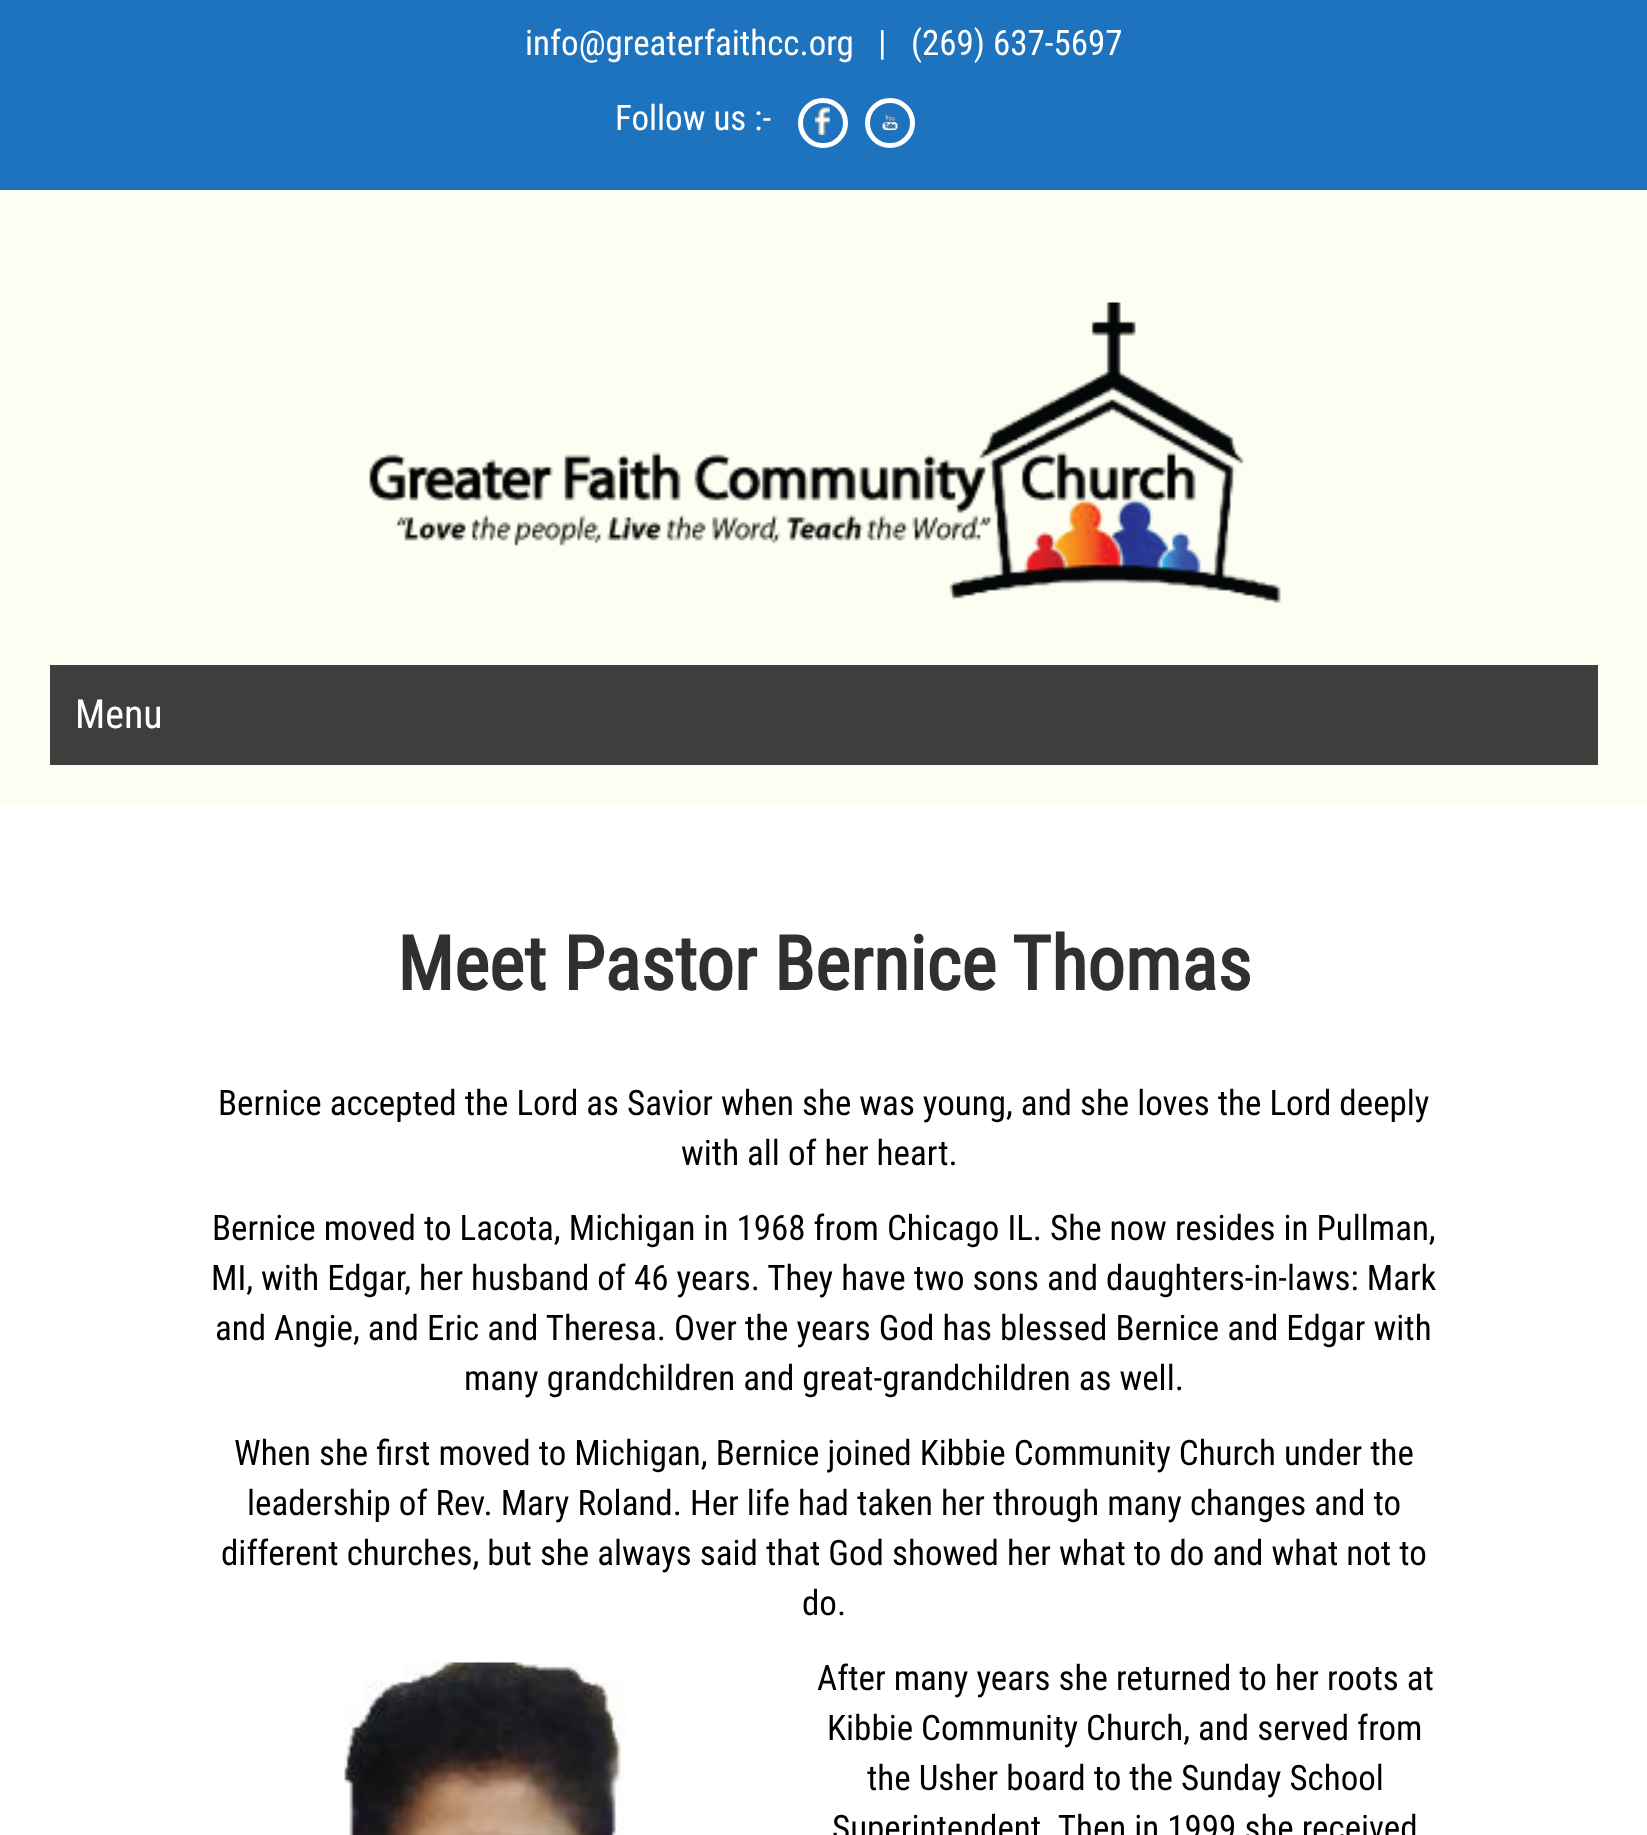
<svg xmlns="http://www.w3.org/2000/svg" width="1647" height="1835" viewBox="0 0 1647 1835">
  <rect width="100%" height="100%" fill="#ffffff"/>
  <rect x="0" y="0" width="1647" height="190" fill="#1e73be"/>
  <text x="525" y="55" font-family="Roboto Condensed" font-size="35" fill="#ffffff">info@greaterfaithcc.org</text>
  <text x="878" y="55" font-family="Roboto Condensed" font-size="35" fill="#ffffff">|</text>
  <text x="911" y="55" font-family="Roboto Condensed" font-size="35" fill="#ffffff">(269) 637-5697</text>
  <text x="615" y="130" font-family="Roboto Condensed" font-size="35" fill="#ffffff">Follow us :-</text>
  <image x="815" y="107" width="15" height="28" href="img1.png"/>
  <circle cx="823" cy="123" r="22.5" fill="none" stroke="#ffffff" stroke-width="5"/>
  <image x="882" y="115" width="16" height="15" href="img2.png"/>
  <circle cx="890" cy="123" r="22.5" fill="none" stroke="#ffffff" stroke-width="5"/>
  <rect x="0" y="190" width="1647" height="613" fill="#fdfdf1"/>
  <image x="369" y="302" width="912" height="301" href="img3.png"/>
  <rect x="50" y="665" width="1548" height="100" fill="#3e3e3e"/>
  <text x="75" y="728" font-family="Roboto Condensed" font-size="40" fill="#ffffff">Menu</text>
  <text x="397" y="990" font-family="Roboto Condensed" font-size="75" font-weight="bold" fill="#303030">Meet Pastor Bernice Thomas</text>
  <text x="218" y="1115" font-family="Roboto Condensed" font-size="35" fill="#000000">Bernice accepted the Lord as Savior when she was young, and she loves the Lord deeply</text>
  <text x="681" y="1165" font-family="Roboto Condensed" font-size="35" fill="#000000">with all of her heart.</text>
  <text x="212" y="1240" font-family="Roboto Condensed" font-size="35" fill="#000000">Bernice moved to Lacota, Michigan in 1968 from Chicago IL. She now resides in Pullman,</text>
  <text x="211" y="1290" font-family="Roboto Condensed" font-size="35" fill="#000000">MI, with Edgar, her husband of 46 years. They have two sons and daughters-in-laws: Mark</text>
  <text x="215" y="1340" font-family="Roboto Condensed" font-size="35" fill="#000000">and Angie, and Eric and Theresa. Over the years God has blessed Bernice and Edgar with</text>
  <text x="464" y="1390" font-family="Roboto Condensed" font-size="35" fill="#000000">many grandchildren and great-grandchildren as well.</text>
  <text x="234" y="1465" font-family="Roboto Condensed" font-size="35" fill="#000000">When she first moved to Michigan, Bernice joined Kibbie Community Church under the</text>
  <text x="247" y="1515" font-family="Roboto Condensed" font-size="35" fill="#000000">leadership of Rev. Mary Roland. Her life had taken her through many changes and to</text>
  <text x="221" y="1565" font-family="Roboto Condensed" font-size="35" fill="#000000">different churches, but she always said that God showed her what to do and what not to</text>
  <text x="802" y="1615" font-family="Roboto Condensed" font-size="35" fill="#000000">do.</text>
  <image x="344" y="1662" width="282" height="173" href="img4.png"/>
  <text x="817" y="1690" font-family="Roboto Condensed" font-size="35" fill="#000000">After many years she returned to her roots at</text>
  <text x="827" y="1740" font-family="Roboto Condensed" font-size="35" fill="#000000">Kibbie Community Church, and served from</text>
  <text x="867" y="1790" font-family="Roboto Condensed" font-size="35" fill="#000000">the Usher board to the Sunday School</text>
  <text x="832" y="1840" font-family="Roboto Condensed" font-size="35" fill="#000000">Superintendent. Then in 1999 she received</text>
</svg>
